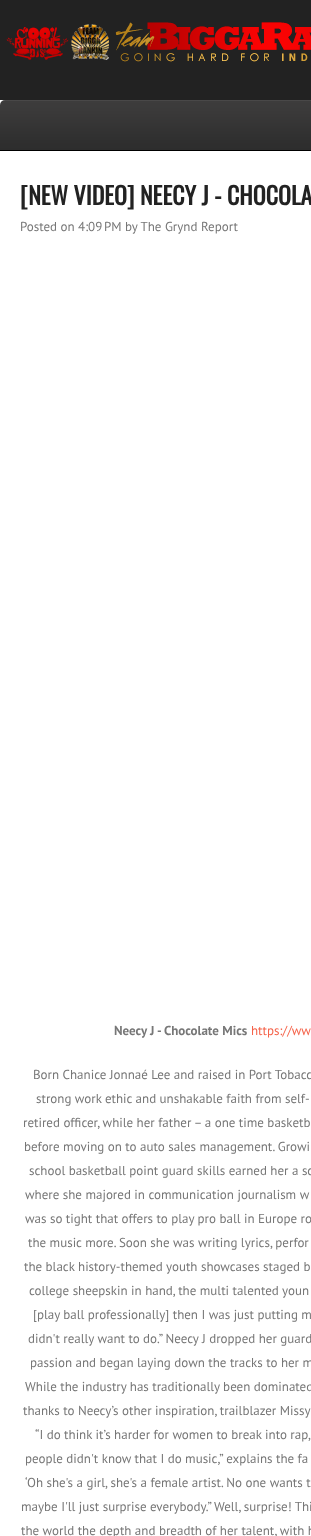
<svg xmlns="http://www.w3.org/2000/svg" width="311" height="1536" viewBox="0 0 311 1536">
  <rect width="100%" height="100%" fill="#ffffff"/>
  <rect x="0" y="0" width="311" height="100" fill="#222222"/>
  <image x="6" y="22" width="305" height="40" href="img1.png"/>
  <image x="0" y="100" width="311" height="50" href="img2.png"/>
  <rect x="0" y="150" width="311" height="1" fill="#000000"/>
  <text x="20" y="205" font-family="Oswald" font-size="24" font-weight="bold" fill="#222222">[NEW VIDEO] NEECY J - CHOCOLA</text>
  <text x="20" y="231" font-family="PT Sans" font-size="13" fill="#777777">Posted on 4:09 PM by The Grynd Report</text>
  <text x="114" y="1035" font-family="PT Sans" font-size="13" font-weight="bold" fill="#777777">Neecy J - Chocolate Mics</text>
  <text x="251" y="1035" font-family="PT Sans" font-size="13" fill="#f5634a">https://ww</text>
  <text x="33" y="1079" font-family="PT Sans" font-size="13" fill="#777777">Born Chanice Jonnaé Lee and raised in Port Tobacc</text>
  <text x="36" y="1103" font-family="PT Sans" font-size="13" fill="#777777">strong work ethic and unshakable faith from self-</text>
  <text x="23" y="1127" font-family="PT Sans" font-size="13" fill="#777777">retired officer, while her father – a one time basketb</text>
  <text x="24" y="1151" font-family="PT Sans" font-size="13" fill="#777777">before moving on to auto sales management. Growi</text>
  <text x="29" y="1175" font-family="PT Sans" font-size="13" fill="#777777">school basketball point guard skills earned her a sc</text>
  <text x="25" y="1199" font-family="PT Sans" font-size="13" fill="#777777">where she majored in communication journalism w</text>
  <text x="25" y="1223" font-family="PT Sans" font-size="13" fill="#777777">was so tight that offers to play pro ball in Europe ro</text>
  <text x="28" y="1247" font-family="PT Sans" font-size="13" fill="#777777">the music more. Soon she was writing lyrics, perfor</text>
  <text x="24" y="1271" font-family="PT Sans" font-size="13" fill="#777777">the black history-themed youth showcases staged b</text>
  <text x="29" y="1295" font-family="PT Sans" font-size="13" fill="#777777">college sheepskin in hand, the multi talented youn</text>
  <text x="33" y="1319" font-family="PT Sans" font-size="13" fill="#777777">[play ball professionally] then I was just putting m</text>
  <text x="28" y="1343" font-family="PT Sans" font-size="13" fill="#777777">didn't really want to do.” Neecy J dropped her guard</text>
  <text x="30" y="1367" font-family="PT Sans" font-size="13" fill="#777777">passion and began laying down the tracks to her m</text>
  <text x="25" y="1391" font-family="PT Sans" font-size="13" fill="#777777">While the industry has traditionally been dominated</text>
  <text x="23" y="1415" font-family="PT Sans" font-size="13" fill="#777777">thanks to Neecy’s other inspiration, trailblazer Missy</text>
  <text x="35" y="1439" font-family="PT Sans" font-size="13" fill="#777777">“I do think it’s harder for women to break into rap,</text>
  <text x="25" y="1463" font-family="PT Sans" font-size="13" fill="#777777">people didn't know that I do music,” explains the fa</text>
  <text x="25" y="1487" font-family="PT Sans" font-size="13" fill="#777777">‘Oh she's a girl, she's a female artist. No one wants t</text>
  <text x="21" y="1511" font-family="PT Sans" font-size="13" fill="#777777">maybe I'll just surprise everybody.” Well, surprise! Thi</text>
  <text x="21" y="1535" font-family="PT Sans" font-size="13" fill="#777777">the world the depth and breadth of her talent, with h</text>
</svg>
